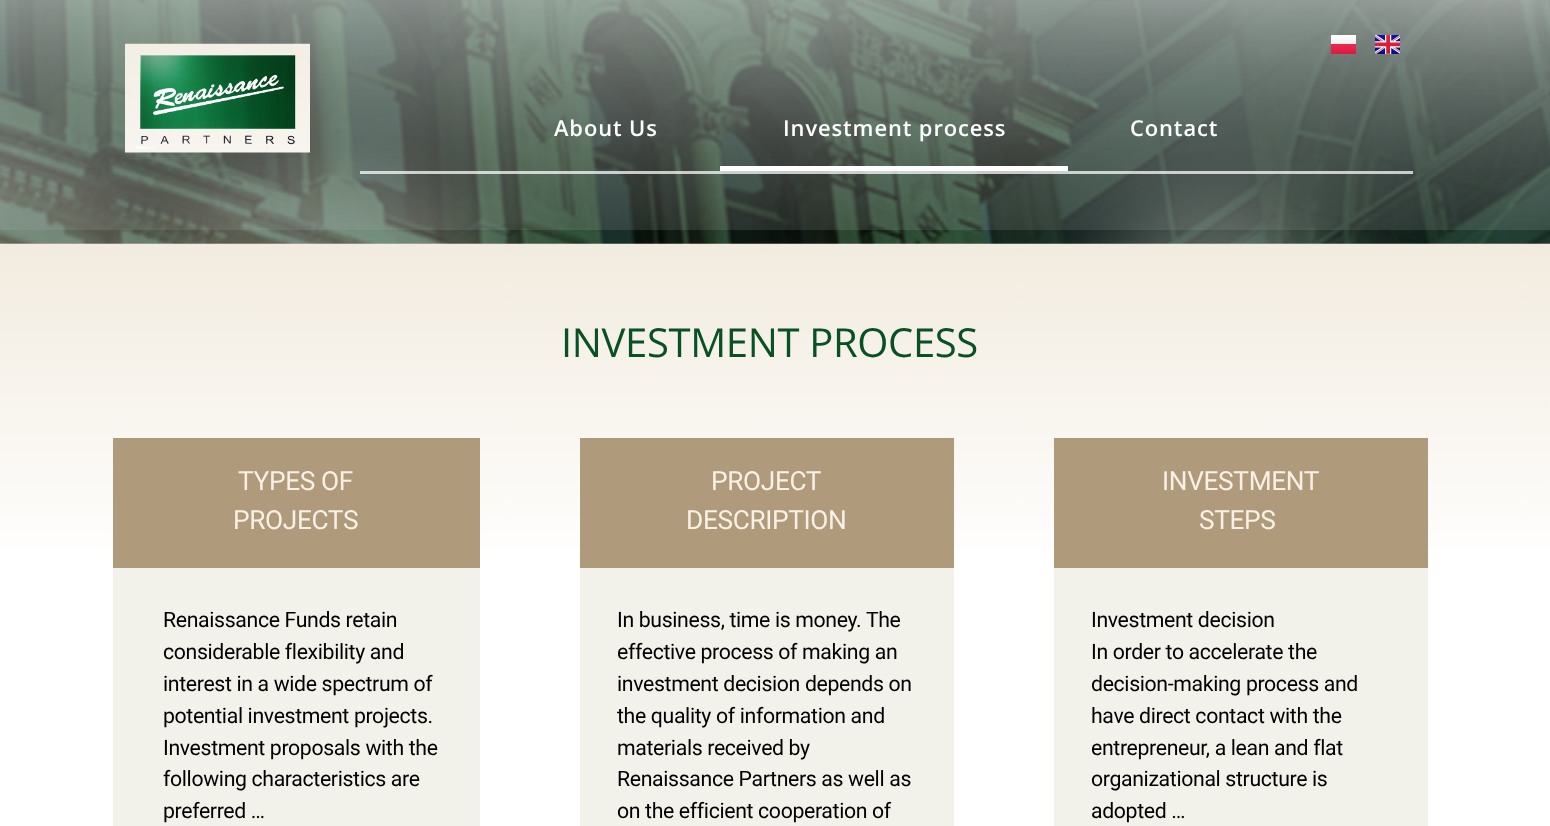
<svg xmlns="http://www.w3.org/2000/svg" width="1550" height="826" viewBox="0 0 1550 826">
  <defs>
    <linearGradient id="g1" gradientUnits="userSpaceOnUse" x1="1344" y1="44" x2="1344" y2="54"><stop offset="0" stop-color="#eb2a50"/><stop offset="1" stop-color="#da1b40"/></linearGradient>
    <linearGradient id="g2" gradientUnits="userSpaceOnUse" x1="1344" y1="35" x2="1344" y2="44"><stop offset="0" stop-color="#ffffff"/><stop offset="1" stop-color="#f0f0f0"/></linearGradient>
    <linearGradient id="g3" gradientUnits="userSpaceOnUse" x1="775" y1="244" x2="775" y2="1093"><stop offset="0" stop-color="#f2ebdf"/><stop offset="0.39" stop-color="#ffffff"/></linearGradient>
  </defs>
  <rect width="100%" height="100%" fill="#ffffff"/>
  <image x="0" y="0" width="1550" height="244" href="img3.png"/>
  <image x="125" y="43" width="185" height="110" href="img1.png"/>
  <rect x="360" y="171" width="1053" height="3" fill="#ffffff" fill-opacity="0.73"/>
  <rect x="1331" y="44" width="25" height="10" fill="url(#g1)"/>
  <rect x="1331" y="35" width="25" height="9" fill="url(#g2)"/>
  <image x="1375" y="35" width="25" height="19" href="img2.png"/>
  <text x="554" y="136" font-family="Open Sans" font-size="21.9" font-weight="600" letter-spacing="0.9" fill="#ffffff">About Us</text>
  <text x="783" y="136" font-family="Open Sans" font-size="21.9" font-weight="600" letter-spacing="0.9" fill="#ffffff">Investment process</text>
  <rect x="720" y="166" width="348" height="5" fill="#ffffff"/>
  <text x="1130" y="136" font-family="Open Sans" font-size="21.9" font-weight="600" letter-spacing="0.9" fill="#ffffff">Contact</text>
  <rect x="0" y="244" width="1550" height="305" fill="url(#g3)"/>
  <text x="561" y="357" font-family="Open Sans" font-size="40" letter-spacing="-0.35" fill="#095024">INVESTMENT PROCESS</text>
  <rect x="113" y="438" width="367" height="130" fill="#b09a7c"/>
  <text x="238" y="490" font-family="Roboto" font-size="26.25" letter-spacing="-0.35" fill="#f9f1e5">TYPES OF</text>
  <text x="233" y="529" font-family="Roboto" font-size="26.25" letter-spacing="-0.35" fill="#f9f1e5">PROJECTS</text>
  <rect x="113" y="568" width="367" height="258" fill="#f3f2ea"/>
  <text x="163" y="627" font-family="Roboto" font-size="21.25" letter-spacing="-0.35" fill="#010101">Renaissance Funds retain</text>
  <text x="163" y="659" font-family="Roboto" font-size="21.25" letter-spacing="-0.35" fill="#010101">considerable flexibility and</text>
  <text x="163" y="691" font-family="Roboto" font-size="21.25" letter-spacing="-0.35" fill="#010101">interest in a wide spectrum of</text>
  <text x="163" y="723" font-family="Roboto" font-size="21.25" letter-spacing="-0.35" fill="#010101">potential investment projects.</text>
  <text x="163" y="755" font-family="Roboto" font-size="21.25" letter-spacing="-0.35" fill="#010101">Investment proposals with the</text>
  <text x="163" y="786" font-family="Roboto" font-size="21.25" letter-spacing="-0.35" fill="#010101">following characteristics are</text>
  <text x="163" y="818" font-family="Roboto" font-size="21.25" letter-spacing="-0.35" fill="#010101">preferred …</text>
  <rect x="580" y="438" width="374" height="130" fill="#b09a7c"/>
  <text x="711" y="490" font-family="Roboto" font-size="26.25" letter-spacing="-0.35" fill="#f9f1e5">PROJECT</text>
  <text x="686" y="529" font-family="Roboto" font-size="26.25" letter-spacing="-0.35" fill="#f9f1e5">DESCRIPTION</text>
  <rect x="580" y="568" width="374" height="258" fill="#f3f2ea"/>
  <text x="617" y="627" font-family="Roboto" font-size="21.25" letter-spacing="-0.35" fill="#010101">In business, time is money. The</text>
  <text x="617" y="659" font-family="Roboto" font-size="21.25" letter-spacing="-0.35" fill="#010101">effective process of making an</text>
  <text x="617" y="691" font-family="Roboto" font-size="21.25" letter-spacing="-0.35" fill="#010101">investment decision depends on</text>
  <text x="617" y="723" font-family="Roboto" font-size="21.25" letter-spacing="-0.35" fill="#010101">the quality of information and</text>
  <text x="617" y="755" font-family="Roboto" font-size="21.25" letter-spacing="-0.35" fill="#010101">materials received by</text>
  <text x="617" y="786" font-family="Roboto" font-size="21.25" letter-spacing="-0.35" fill="#010101">Renaissance Partners as well as</text>
  <text x="617" y="818" font-family="Roboto" font-size="21.25" letter-spacing="-0.35" fill="#010101">on the efficient cooperation of</text>
  <rect x="1054" y="438" width="374" height="130" fill="#b09a7c"/>
  <text x="1162" y="490" font-family="Roboto" font-size="26.25" letter-spacing="-0.35" fill="#f9f1e5">INVESTMENT</text>
  <text x="1199" y="529" font-family="Roboto" font-size="26.25" letter-spacing="-0.35" fill="#f9f1e5">STEPS</text>
  <rect x="1054" y="568" width="374" height="258" fill="#f3f2ea"/>
  <text x="1091" y="627" font-family="Roboto" font-size="21.25" letter-spacing="-0.35" fill="#010101">Investment decision</text>
  <text x="1091" y="659" font-family="Roboto" font-size="21.25" letter-spacing="-0.35" fill="#010101">In order to accelerate the</text>
  <text x="1091" y="691" font-family="Roboto" font-size="21.25" letter-spacing="-0.35" fill="#010101">decision-making process and</text>
  <text x="1091" y="723" font-family="Roboto" font-size="21.25" letter-spacing="-0.35" fill="#010101">have direct contact with the</text>
  <text x="1091" y="755" font-family="Roboto" font-size="21.25" letter-spacing="-0.35" fill="#010101">entrepreneur, a lean and flat</text>
  <text x="1091" y="786" font-family="Roboto" font-size="21.25" letter-spacing="-0.35" fill="#010101">organizational structure is</text>
  <text x="1091" y="818" font-family="Roboto" font-size="21.25" letter-spacing="-0.35" fill="#010101">adopted …</text>
</svg>
